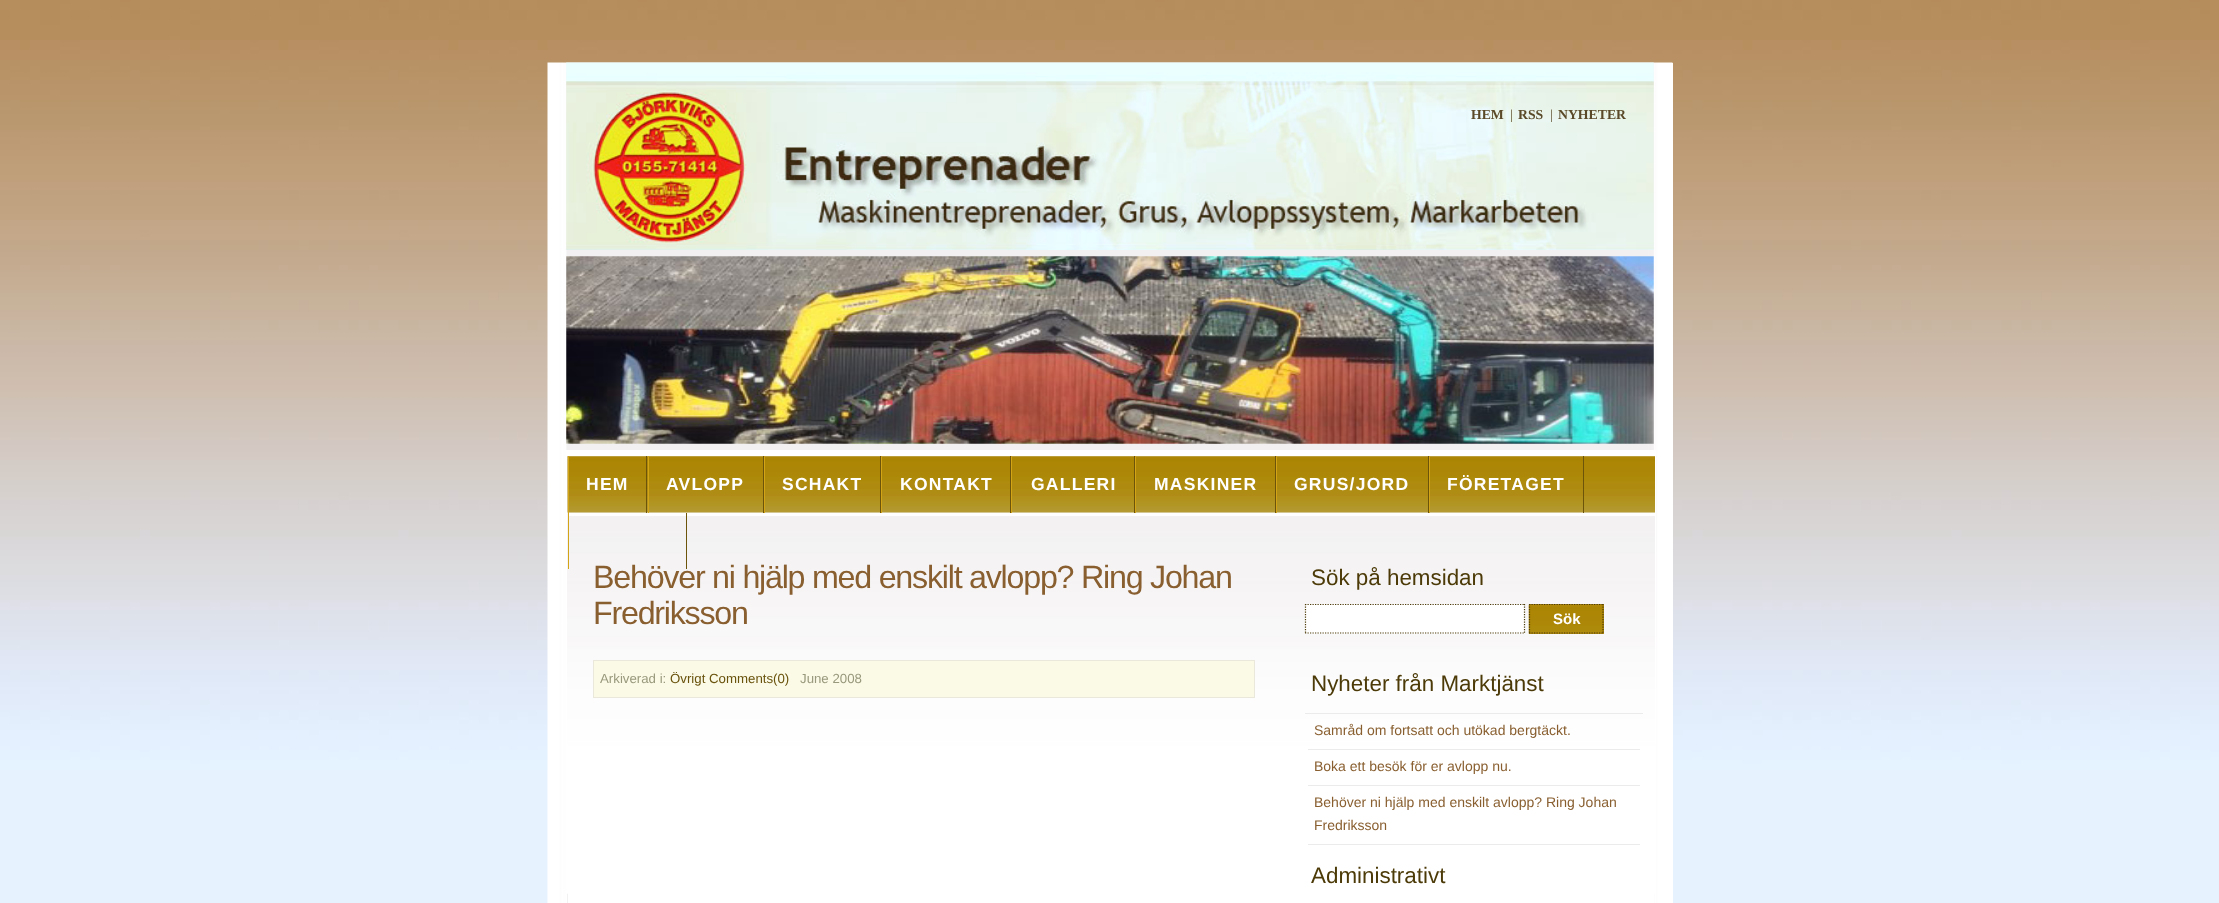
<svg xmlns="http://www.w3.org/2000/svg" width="2219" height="903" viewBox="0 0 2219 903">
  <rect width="100%" height="100%" fill="#ffffff"/>
  <image x="0" y="0" width="2219" height="903" href="img1.png"/>
  <rect x="1672" y="63" width="1" height="840" fill="#ffffff"/>
  <image x="547" y="62" width="1126" height="841" href="img2.png"/>
  <image x="566" y="62" width="1088" height="188" href="img3.png"/>
  <text x="1471" y="119" font-family="Liberation Serif" font-size="13.75" font-weight="bold" fill="#5b4a29">HEM</text>
  <text x="1510" y="119" font-family="Liberation Serif" font-size="13.75" fill="#5b4a29">|</text>
  <text x="1518" y="119" font-family="Liberation Serif" font-size="13.75" font-weight="bold" fill="#5b4a29">RSS</text>
  <text x="1550" y="119" font-family="Liberation Serif" font-size="13.75" fill="#5b4a29">|</text>
  <text x="1558" y="119" font-family="Liberation Serif" font-size="13.75" font-weight="bold" fill="#5b4a29">NYHETER</text>
  <rect x="566" y="256" width="1088" height="188" fill="#fafafa"/>
  <image x="566" y="256" width="1088" height="188" href="img4.png"/>
  <rect x="568" y="456" width="1086" height="447" fill="#ffffff"/>
  <image x="567" y="456" width="1090" height="438" href="img5.png"/>
  <rect x="566" y="450" width="1090" height="6" fill="#ffffff"/>
  <rect x="1655" y="450" width="1" height="453" fill="#ffffff"/>
  <rect x="566" y="450" width="1" height="453" fill="#ffffff"/>
  <image x="567" y="456" width="1088" height="57" href="img6.png"/>
  <rect x="568" y="513" width="1087" height="3" fill="#ffffff"/>
  <rect x="646" y="456" width="1" height="57" fill="#6c540a"/>
  <rect x="568" y="456" width="1" height="113" fill="#d3a416"/>
  <text x="586" y="490" font-family="Liberation Sans" font-size="17.5" font-weight="bold" letter-spacing="1.25" fill="#ffffff">HEM</text>
  <rect x="763" y="456" width="1" height="57" fill="#6c540a"/>
  <rect x="648" y="456" width="1" height="57" fill="#d3a416"/>
  <text x="666" y="490" font-family="Liberation Sans" font-size="17.5" font-weight="bold" letter-spacing="1.25" fill="#ffffff">AVLOPP</text>
  <rect x="880" y="456" width="1" height="57" fill="#6c540a"/>
  <rect x="764" y="456" width="1" height="57" fill="#d3a416"/>
  <text x="782" y="490" font-family="Liberation Sans" font-size="17.5" font-weight="bold" letter-spacing="1.25" fill="#ffffff">SCHAKT</text>
  <rect x="1010" y="456" width="1" height="57" fill="#6c540a"/>
  <rect x="881" y="456" width="1" height="57" fill="#d3a416"/>
  <text x="900" y="490" font-family="Liberation Sans" font-size="17.5" font-weight="bold" letter-spacing="1.25" fill="#ffffff">KONTAKT</text>
  <rect x="1134" y="456" width="1" height="57" fill="#6c540a"/>
  <rect x="1011" y="456" width="1" height="57" fill="#d3a416"/>
  <text x="1031" y="490" font-family="Liberation Sans" font-size="17.5" font-weight="bold" letter-spacing="1.25" fill="#ffffff">GALLERI</text>
  <rect x="1275" y="456" width="1" height="57" fill="#6c540a"/>
  <rect x="1135" y="456" width="1" height="57" fill="#d3a416"/>
  <text x="1154" y="490" font-family="Liberation Sans" font-size="17.5" font-weight="bold" letter-spacing="1.25" fill="#ffffff">MASKINER</text>
  <rect x="1428" y="456" width="1" height="57" fill="#6c540a"/>
  <rect x="1276" y="456" width="1" height="57" fill="#d3a416"/>
  <text x="1294" y="490" font-family="Liberation Sans" font-size="17.5" font-weight="bold" letter-spacing="1.25" fill="#ffffff">GRUS/JORD</text>
  <rect x="1583" y="456" width="1" height="57" fill="#6c540a"/>
  <rect x="1429" y="456" width="1" height="57" fill="#d3a416"/>
  <text x="1447" y="490" font-family="Liberation Sans" font-size="17.5" font-weight="bold" letter-spacing="1.25" fill="#ffffff">FÖRETAGET</text>
  <rect x="686" y="513" width="1" height="56" fill="#6c540a"/>
  <text x="593" y="588" font-family="Liberation Sans" font-size="32.25" letter-spacing="-1.25" fill="#895f30">Behöver ni hjälp med enskilt avlopp? Ring Johan</text>
  <text x="593" y="624" font-family="Liberation Sans" font-size="32.25" letter-spacing="-1.25" fill="#895f30">Fredriksson</text>
  <rect x="593.5" y="660.5" width="661" height="37" fill="#fafae7" stroke="#eae7db"/>
  <text x="600" y="683" font-family="Liberation Sans" font-size="13.25" fill="#99997d">Arkiverad i:</text>
  <text x="670" y="683" font-family="Liberation Sans" font-size="13.25" fill="#69520c">Övrigt Comments(0)</text>
  <text x="800" y="683" font-family="Liberation Sans" font-size="13.25" fill="#99997d">June 2008</text>
  <text x="1311" y="585" font-family="Liberation Sans" font-size="22.4" fill="#4c3b08">Sök på hemsidan</text>
  <rect x="1305" y="604" width="220" height="30" fill="#ffffff"/>
  <path d="M1305 604.5H1525" fill="none" stroke="#4c3b08" stroke-width="1.2" stroke-dasharray="1.25 1.25"/>
  <path d="M1524.5 604V634" fill="none" stroke="#4c3b08" stroke-width="1.2" stroke-dasharray="1.25 1.25"/>
  <path d="M1305 633H1525" fill="none" stroke="#4c3b08" stroke-width="1.2" stroke-dasharray="1.25 1.25"/>
  <path d="M1305.5 604V634" fill="none" stroke="#4c3b08" stroke-width="1.2" stroke-dasharray="1.25 1.25"/>
  <rect x="1529" y="604" width="75" height="30" fill="#b28a11"/>
  <image x="1528" y="605" width="76" height="29" href="img7.png"/>
  <path d="M1529 604.5H1604" fill="none" stroke="#4c3b08" stroke-width="1.2" stroke-dasharray="1.25 1.25"/>
  <path d="M1603 604V634" fill="none" stroke="#4c3b08" stroke-width="1.2" stroke-dasharray="1.25 1.25"/>
  <path d="M1529 633H1604" fill="none" stroke="#4c3b08" stroke-width="1.2" stroke-dasharray="1.25 1.25"/>
  <path d="M1529.5 604V634" fill="none" stroke="#4c3b08" stroke-width="1.2" stroke-dasharray="1.25 1.25"/>
  <text x="1553" y="624" font-family="Liberation Sans" font-size="15" font-weight="bold" fill="#ffffff">Sök</text>
  <text x="1311" y="691" font-family="Liberation Sans" font-size="22.4" fill="#4c3b08">Nyheter från Marktjänst</text>
  <rect x="1305" y="713" width="338" height="1" fill="#ebebeb"/>
  <rect x="1308" y="749" width="332" height="1" fill="#ebebeb"/>
  <text x="1314" y="735" font-family="Liberation Sans" font-size="14" fill="#895f30">Samråd om fortsatt och utökad bergtäckt.</text>
  <rect x="1308" y="785" width="332" height="1" fill="#ebebeb"/>
  <text x="1314" y="771" font-family="Liberation Sans" font-size="14" fill="#895f30">Boka ett besök för er avlopp nu.</text>
  <rect x="1308" y="844" width="332" height="1" fill="#ebebeb"/>
  <text x="1314" y="807" font-family="Liberation Sans" font-size="14" fill="#895f30">Behöver ni hjälp med enskilt avlopp? Ring Johan</text>
  <text x="1314" y="830" font-family="Liberation Sans" font-size="14" fill="#895f30">Fredriksson</text>
  <text x="1311" y="883" font-family="Liberation Sans" font-size="22.4" fill="#4c3b08">Administrativt</text>
</svg>
